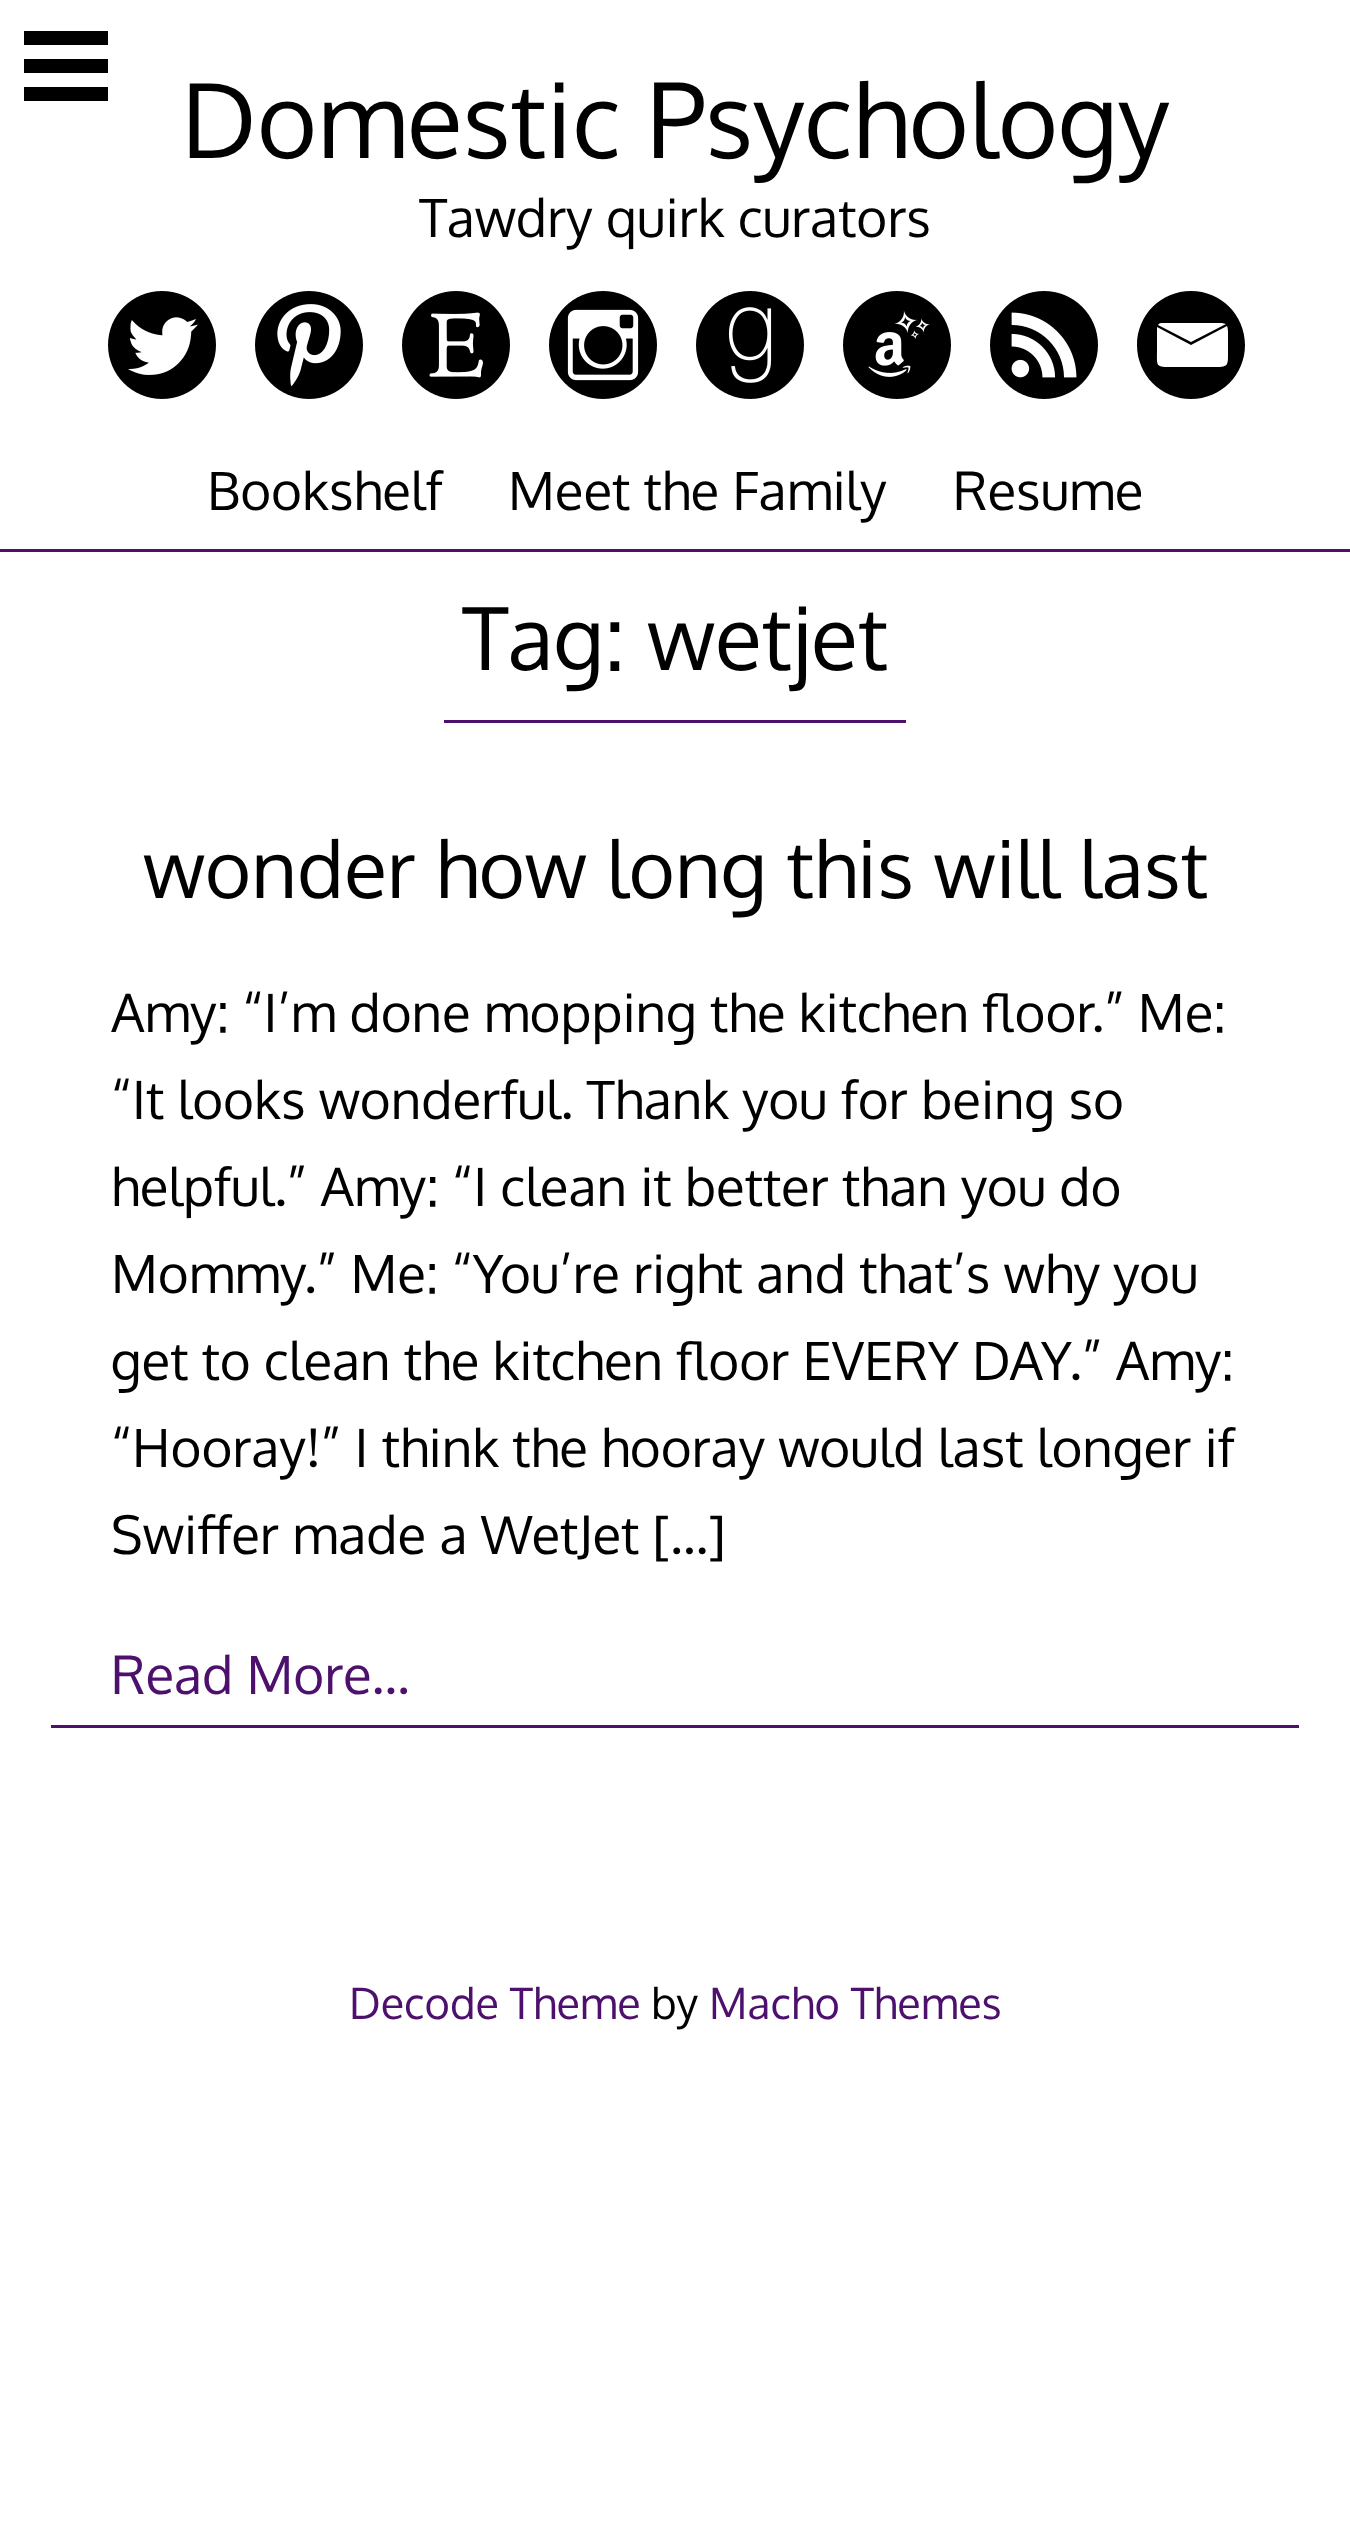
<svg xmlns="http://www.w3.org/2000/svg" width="1350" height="2548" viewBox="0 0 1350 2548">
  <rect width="100%" height="100%" fill="#ffffff"/>
  <rect x="24" y="31" width="84" height="14" fill="#000000"/>
  <rect x="24" y="59" width="84" height="14" fill="#000000"/>
  <rect x="24" y="87" width="84" height="14" fill="#000000"/>
  <rect x="0" y="549" width="1350" height="3" fill="#4d116d"/>
  <text x="181" y="158" font-family="Oxygen" font-size="103.25" fill="#000000">Domestic Psychology</text>
  <text x="419" y="237" font-family="Oxygen" font-size="52.8" fill="#000000">Tawdry quirk curators</text>
  <image x="108" y="291" width="108" height="108" href="img1.png"/>
  <image x="255" y="291" width="108" height="108" href="img2.png"/>
  <image x="402" y="291" width="108" height="108" href="img3.png"/>
  <image x="549" y="291" width="108" height="108" href="img4.png"/>
  <image x="696" y="291" width="108" height="108" href="img5.png"/>
  <image x="843" y="291" width="108" height="108" href="img6.png"/>
  <image x="990" y="291" width="108" height="108" href="img7.png"/>
  <path d="M1163 323C1161 323 1159 323 1158 325L1191 342L1226 324L1222 323ZM1157 327V350C1157 367 1155 367 1173 367H1212C1229 367 1228 367 1228 350V334C1228 332 1228 328 1227 326L1191 345ZM1191 291C1221 291 1245 315 1245 345C1245 375 1221 399 1191 399C1161 399 1137 375 1137 345C1137 315 1161 291 1191 291ZM1230 324V322Z" fill="#000000" fill-rule="evenodd"/>
  <text x="207" y="510" font-family="Oxygen" font-size="52.8" fill="#000000">Bookshelf</text>
  <text x="508" y="510" font-family="Oxygen" font-size="52.8" fill="#000000">Meet the Family</text>
  <text x="953" y="510" font-family="Oxygen" font-size="52.8" fill="#000000">Resume</text>
  <rect x="444" y="720" width="462" height="3" fill="#4d116d"/>
  <text x="462" y="670" font-family="Oxygen" font-size="87" fill="#000000">Tag: wetjet</text>
  <text x="143" y="898" font-family="Oxygen" font-size="79.25" fill="#000000">wonder how long this will last</text>
  <text x="111" y="1032" font-family="Oxygen" font-size="52.8" fill="#000000">Amy: “I’m done mopping the kitchen floor.” Me:</text>
  <text x="111" y="1119" font-family="Oxygen" font-size="52.8" fill="#000000">“It looks wonderful. Thank you for being so</text>
  <text x="111" y="1206" font-family="Oxygen" font-size="52.8" fill="#000000">helpful.” Amy: “I clean it better than you do</text>
  <text x="111" y="1293" font-family="Oxygen" font-size="52.8" fill="#000000">Mommy.” Me: “You’re right and that’s why you</text>
  <text x="111" y="1380" font-family="Oxygen" font-size="52.8" fill="#000000">get to clean the kitchen floor EVERY DAY.” Amy:</text>
  <text x="111" y="1467" font-family="Oxygen" font-size="52.8" fill="#000000">“Hooray!” I think the hooray would last longer if</text>
  <text x="111" y="1554" font-family="Oxygen" font-size="52.8" fill="#000000">Swiffer made a WetJet […]</text>
  <rect x="51" y="1725" width="1248" height="3" fill="#4d116d"/>
  <text x="111" y="1694" font-family="Oxygen" font-size="52.8" fill="#4d116d">Read More…</text>
  <text x="349" y="2019" font-family="Oxygen" font-size="43.25" fill="#4d116d">Decode Theme</text>
  <text x="651" y="2019" font-family="Oxygen" font-size="43.25" fill="#000000">by</text>
  <text x="709" y="2019" font-family="Oxygen" font-size="43.25" fill="#4d116d">Macho Themes</text>
</svg>
